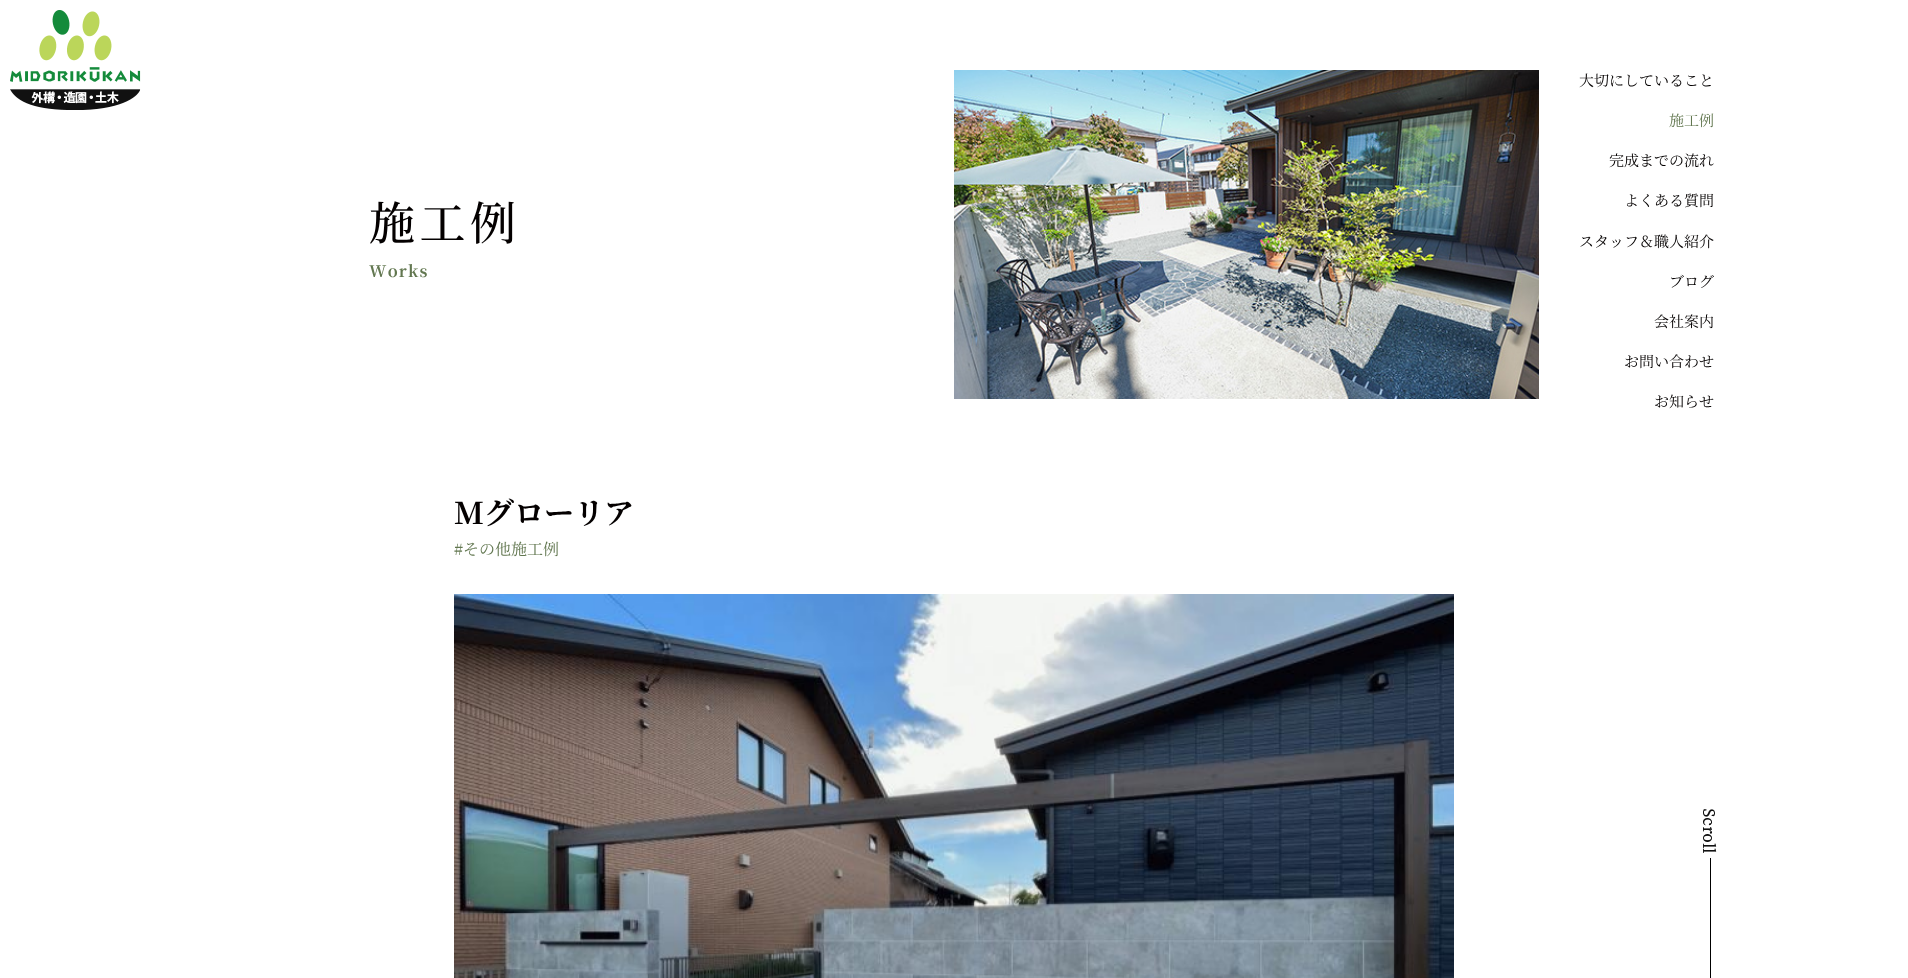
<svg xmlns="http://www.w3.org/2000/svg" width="1908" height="978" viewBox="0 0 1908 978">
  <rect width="100%" height="100%" fill="#ffffff"/>
  <image x="10" y="10" width="131" height="100" href="img1.png"/>
  <text x="369" y="240" font-family="Noto Serif JP" font-size="46" font-weight="500" letter-spacing="4.5" fill="#040000">施工例</text>
  <text x="369" y="277" font-family="Noto Serif JP" font-size="16" font-weight="bold" letter-spacing="1.25" fill="#627750">Works</text>
  <image x="954" y="70" width="585" height="329" href="img2.png"/>
  <text x="1579" y="86" font-family="Noto Serif JP" font-size="15" fill="#040000">大切にしていること</text>
  <text x="1669" y="126" font-family="Noto Serif JP" font-size="15" fill="#627750">施工例</text>
  <text x="1609" y="166" font-family="Noto Serif JP" font-size="15" fill="#040000">完成までの流れ</text>
  <text x="1624" y="206" font-family="Noto Serif JP" font-size="15" fill="#040000">よくある質問</text>
  <text x="1579" y="247" font-family="Noto Serif JP" font-size="15" fill="#040000">スタッフ＆職人紹介</text>
  <text x="1669" y="287" font-family="Noto Serif JP" font-size="15" fill="#040000">ブログ</text>
  <text x="1654" y="327" font-family="Noto Serif JP" font-size="15" fill="#040000">会社案内</text>
  <text x="1624" y="367" font-family="Noto Serif JP" font-size="15" fill="#040000">お問い合わせ</text>
  <text x="1654" y="407" font-family="Noto Serif JP" font-size="15" fill="#040000">お知らせ</text>
  <text x="454" y="524" font-family="Noto Serif JP" font-size="30" font-weight="bold" fill="#040000">Mグローリア</text>
  <text x="454" y="555" font-family="Noto Serif JP" font-size="16" fill="#627750">#その他施工例</text>
  <image x="454" y="594" width="1000" height="384" href="img3.png"/>
  <image x="1703" y="809" width="14" height="44" href="img4.png"/>
  <rect x="1710" y="858" width="1" height="120" fill="#000000"/>
</svg>
